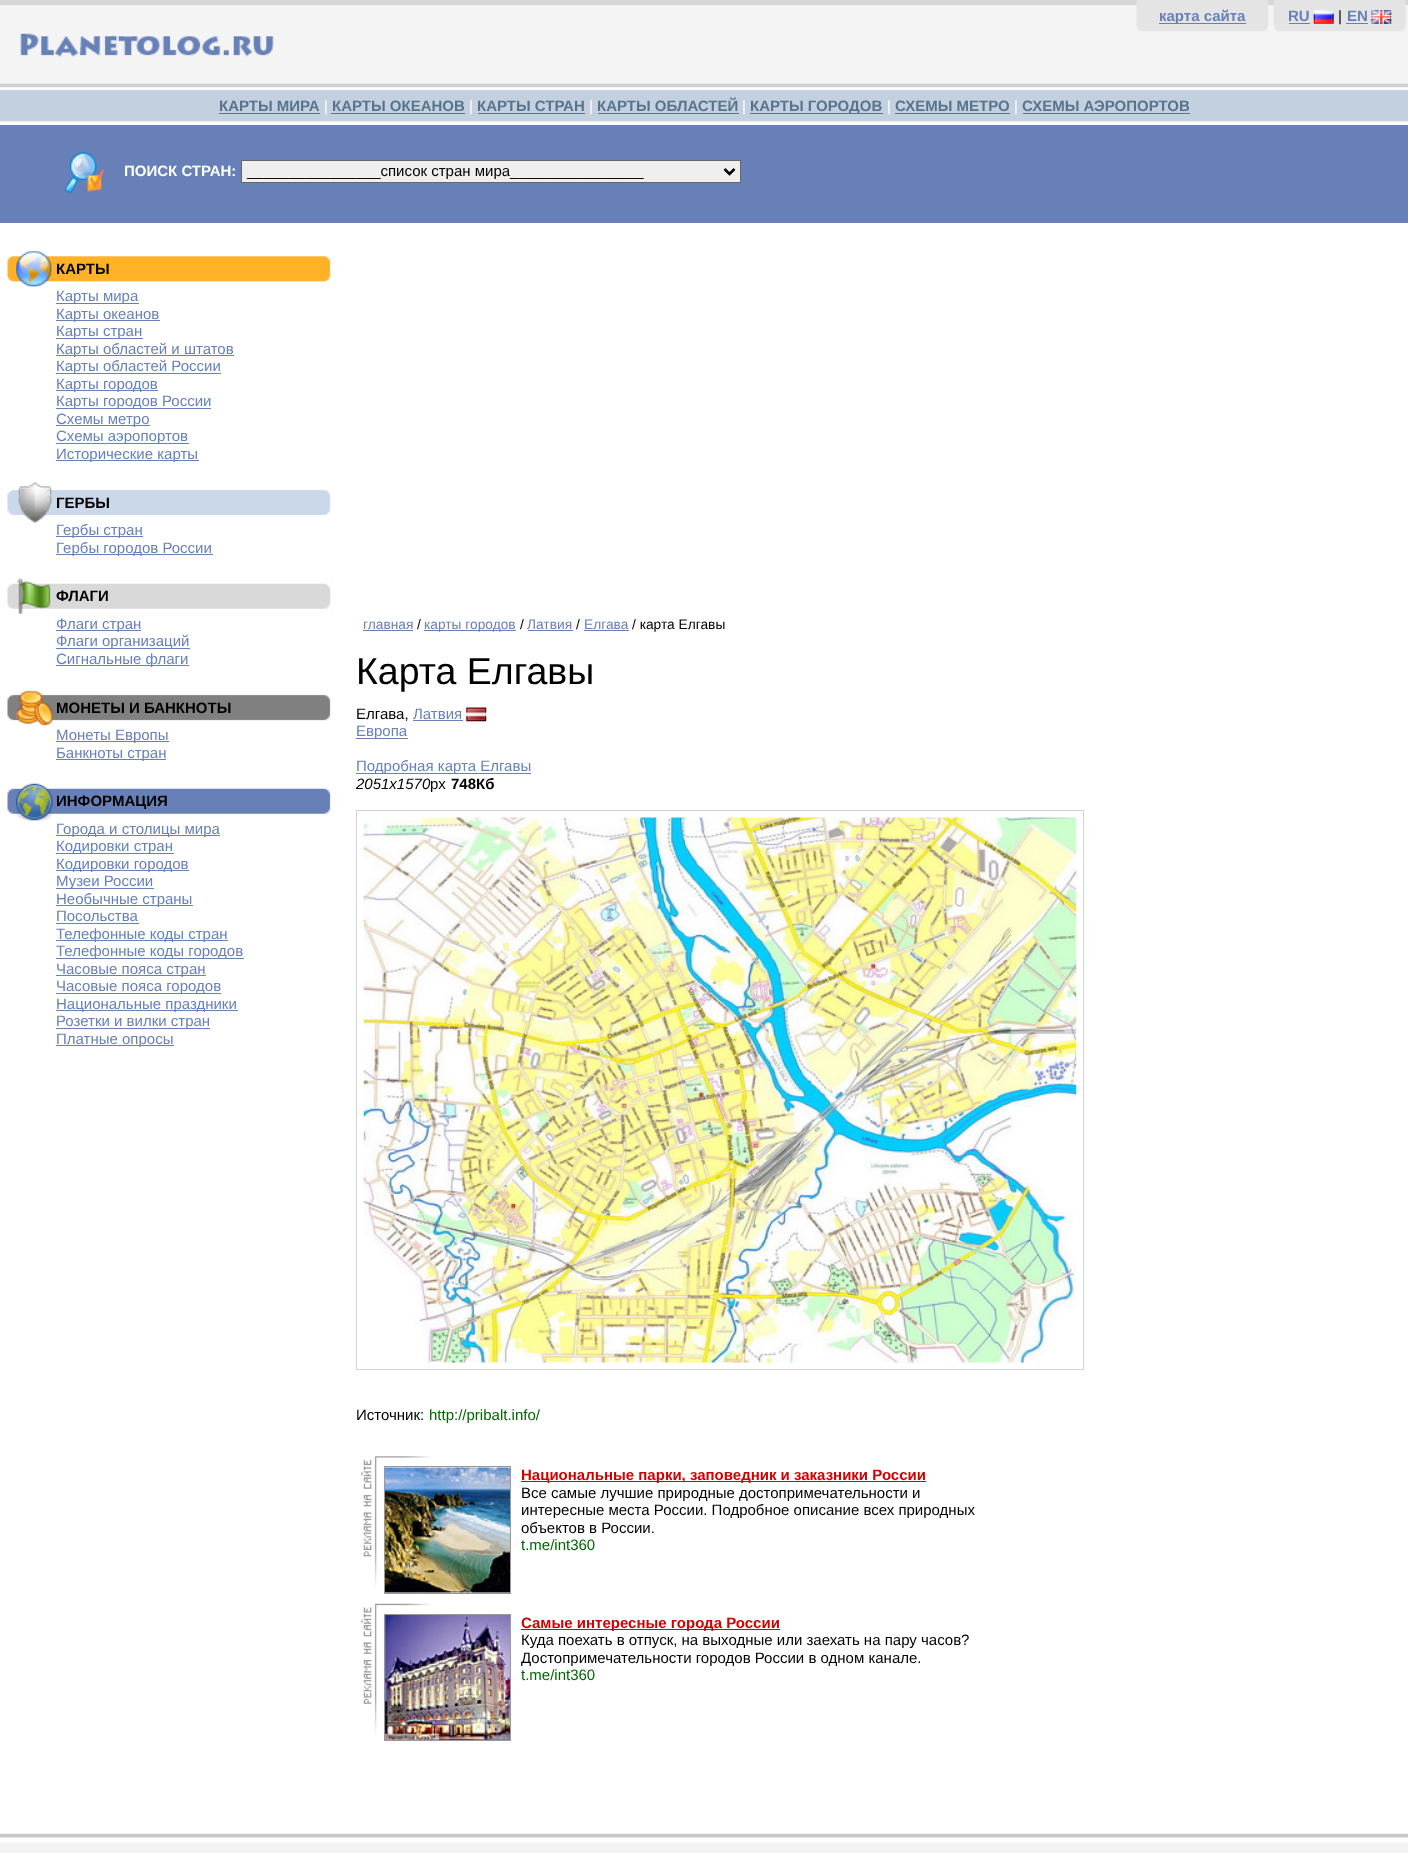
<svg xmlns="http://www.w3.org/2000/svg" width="1408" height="1853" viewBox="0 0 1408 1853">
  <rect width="100%" height="100%" fill="#ffffff"/>
  <image x="0" y="0" width="1408" height="88" href="img1.png"/>
  <image x="1134" y="0" width="137" height="32" href="img2.png"/>
  <rect x="1159" y="23" width="87" height="1" fill="#6780b8"/>
  <text x="1159" y="21" font-family="Liberation Sans" font-size="15" font-weight="bold" fill="#6780b8">карта сайта</text>
  <image x="1271" y="0" width="137" height="32" href="img3.png"/>
  <text x="1288" y="21" font-family="Liberation Sans" font-size="15" font-weight="bold" fill="#6780b8">RU</text>
  <rect x="1289" y="23" width="21" height="1" fill="#6780b8"/>
  <image x="1313" y="10" width="21" height="14" href="img4.png"/>
  <text x="1338" y="21" font-family="Liberation Sans" font-size="15" fill="#000000">|</text>
  <text x="1347" y="21" font-family="Liberation Sans" font-size="15" font-weight="bold" fill="#6780b8">EN</text>
  <rect x="1346" y="23" width="22" height="1" fill="#6780b8"/>
  <image x="1371" y="10" width="21" height="14" href="img5.png"/>
  <image x="20" y="33" width="254" height="24" href="img6.png"/>
  <image x="0" y="87" width="1408" height="38" href="img7.png"/>
  <text x="219" y="111" font-family="Liberation Sans" font-size="15" font-weight="bold" fill="#59738c">КАРТЫ МИРА</text>
  <rect x="219" y="113" width="101" height="1" fill="#59738c"/>
  <text x="324" y="111" font-family="Liberation Sans" font-size="15" fill="#ffffff">|</text>
  <text x="332" y="111" font-family="Liberation Sans" font-size="15" font-weight="bold" fill="#59738c">КАРТЫ ОКЕАНОВ</text>
  <rect x="331" y="113" width="134" height="1" fill="#59738c"/>
  <text x="469" y="111" font-family="Liberation Sans" font-size="15" fill="#ffffff">|</text>
  <text x="477" y="111" font-family="Liberation Sans" font-size="15" font-weight="bold" fill="#59738c">КАРТЫ СТРАН</text>
  <rect x="478" y="113" width="107" height="1" fill="#59738c"/>
  <text x="589" y="111" font-family="Liberation Sans" font-size="15" fill="#ffffff">|</text>
  <text x="597" y="111" font-family="Liberation Sans" font-size="15" font-weight="bold" fill="#59738c">КАРТЫ ОБЛАСТЕЙ</text>
  <rect x="598" y="113" width="141" height="1" fill="#59738c"/>
  <text x="742" y="111" font-family="Liberation Sans" font-size="15" fill="#ffffff">|</text>
  <rect x="750" y="113" width="133" height="1" fill="#59738c"/>
  <text x="750" y="111" font-family="Liberation Sans" font-size="15" font-weight="bold" fill="#59738c">КАРТЫ ГОРОДОВ</text>
  <text x="887" y="111" font-family="Liberation Sans" font-size="15" fill="#ffffff">|</text>
  <text x="895" y="111" font-family="Liberation Sans" font-size="15" font-weight="bold" fill="#59738c">СХЕМЫ МЕТРО</text>
  <rect x="895" y="113" width="115" height="1" fill="#59738c"/>
  <text x="1014" y="111" font-family="Liberation Sans" font-size="15" fill="#ffffff">|</text>
  <text x="1022" y="111" font-family="Liberation Sans" font-size="15" font-weight="bold" fill="#59738c">СХЕМЫ АЭРОПОРТОВ</text>
  <rect x="1023" y="113" width="167" height="1" fill="#59738c"/>
  <rect x="0" y="125" width="1408" height="98" fill="#6780b8"/>
  <image x="64" y="152" width="40" height="42" href="img8.png"/>
  <text x="124" y="176" font-family="Liberation Sans" font-size="15" font-weight="bold" fill="#ffffff">ПОИСК СТРАН:</text>
  <rect x="241.5" y="160.5" width="499" height="22" fill="#efefef" stroke="#666666"/>
  <path d="M724.5 169L729.5 174L734.5 169" fill="none" stroke="#000000" stroke-width="2.5"/>
  <text x="247" y="176" font-family="Liberation Sans" font-size="15" fill="#000000">________________список стран мира________________</text>
  <image x="7" y="251" width="324" height="36" href="img9.png"/>
  <text x="56" y="274" font-family="Liberation Sans" font-size="15" font-weight="bold" fill="#000000">КАРТЫ</text>
  <rect x="56" y="303" width="83" height="1" fill="#6780b8"/>
  <text x="56" y="301" font-family="Liberation Sans" font-size="15" fill="#6780b8">Карты мира</text>
  <rect x="56" y="320" width="104" height="1" fill="#6780b8"/>
  <text x="56" y="319" font-family="Liberation Sans" font-size="15" fill="#6780b8">Карты океанов</text>
  <rect x="56" y="338" width="87" height="1" fill="#6780b8"/>
  <text x="56" y="336" font-family="Liberation Sans" font-size="15" fill="#6780b8">Карты стран</text>
  <rect x="56" y="355" width="178" height="1" fill="#6780b8"/>
  <text x="56" y="354" font-family="Liberation Sans" font-size="15" fill="#6780b8">Карты областей и штатов</text>
  <rect x="56" y="373" width="165" height="1" fill="#6780b8"/>
  <text x="56" y="371" font-family="Liberation Sans" font-size="15" fill="#6780b8">Карты областей России</text>
  <rect x="56" y="390" width="102" height="1" fill="#6780b8"/>
  <text x="56" y="389" font-family="Liberation Sans" font-size="15" fill="#6780b8">Карты городов</text>
  <rect x="56" y="408" width="155" height="1" fill="#6780b8"/>
  <text x="56" y="406" font-family="Liberation Sans" font-size="15" fill="#6780b8">Карты городов России</text>
  <rect x="56" y="425" width="94" height="1" fill="#6780b8"/>
  <text x="56" y="424" font-family="Liberation Sans" font-size="15" fill="#6780b8">Схемы метро</text>
  <rect x="56" y="443" width="133" height="1" fill="#6780b8"/>
  <text x="56" y="441" font-family="Liberation Sans" font-size="15" fill="#6780b8">Схемы аэропортов</text>
  <rect x="56" y="460" width="143" height="1" fill="#6780b8"/>
  <text x="56" y="459" font-family="Liberation Sans" font-size="15" fill="#6780b8">Исторические карты</text>
  <image x="7" y="482" width="324" height="41" href="img10.png"/>
  <text x="56" y="508" font-family="Liberation Sans" font-size="15" font-weight="bold" fill="#000000">ГЕРБЫ</text>
  <rect x="56" y="536" width="87" height="1" fill="#6780b8"/>
  <text x="56" y="535" font-family="Liberation Sans" font-size="15" fill="#6780b8">Гербы стран</text>
  <rect x="56" y="554" width="157" height="1" fill="#6780b8"/>
  <text x="56" y="553" font-family="Liberation Sans" font-size="15" fill="#6780b8">Гербы городов России</text>
  <image x="7" y="578" width="324" height="36" href="img11.png"/>
  <text x="56" y="601" font-family="Liberation Sans" font-size="15" font-weight="bold" fill="#000000">ФЛАГИ</text>
  <rect x="56" y="630" width="85" height="1" fill="#6780b8"/>
  <text x="56" y="629" font-family="Liberation Sans" font-size="15" fill="#6780b8">Флаги стран</text>
  <rect x="56" y="648" width="134" height="1" fill="#6780b8"/>
  <text x="56" y="646" font-family="Liberation Sans" font-size="15" fill="#6780b8">Флаги организаций</text>
  <rect x="56" y="665" width="133" height="1" fill="#6780b8"/>
  <text x="56" y="664" font-family="Liberation Sans" font-size="15" fill="#6780b8">Сигнальные флаги</text>
  <image x="7" y="690" width="324" height="36" href="img12.png"/>
  <text x="56" y="713" font-family="Liberation Sans" font-size="15" font-weight="bold" fill="#000000">МОНЕТЫ И БАНКНОТЫ</text>
  <rect x="56" y="741" width="113" height="1" fill="#6780b8"/>
  <text x="56" y="740" font-family="Liberation Sans" font-size="15" fill="#6780b8">Монеты Европы</text>
  <rect x="56" y="759" width="110" height="1" fill="#6780b8"/>
  <text x="56" y="758" font-family="Liberation Sans" font-size="15" fill="#6780b8">Банкноты стран</text>
  <image x="7" y="783" width="324" height="39" href="img13.png"/>
  <text x="56" y="806" font-family="Liberation Sans" font-size="15" font-weight="bold" fill="#000000">ИНФОРМАЦИЯ</text>
  <rect x="56" y="835" width="164" height="1" fill="#6780b8"/>
  <text x="56" y="834" font-family="Liberation Sans" font-size="15" fill="#6780b8">Города и столицы мира</text>
  <rect x="56" y="853" width="118" height="1" fill="#6780b8"/>
  <text x="56" y="851" font-family="Liberation Sans" font-size="15" fill="#6780b8">Кодировки стран</text>
  <rect x="56" y="870" width="133" height="1" fill="#6780b8"/>
  <text x="56" y="869" font-family="Liberation Sans" font-size="15" fill="#6780b8">Кодировки городов</text>
  <rect x="56" y="888" width="98" height="1" fill="#6780b8"/>
  <text x="56" y="886" font-family="Liberation Sans" font-size="15" fill="#6780b8">Музеи России</text>
  <rect x="56" y="905" width="137" height="1" fill="#6780b8"/>
  <text x="56" y="904" font-family="Liberation Sans" font-size="15" fill="#6780b8">Необычные страны</text>
  <text x="56" y="921" font-family="Liberation Sans" font-size="15" fill="#6780b8">Посольства</text>
  <rect x="56" y="923" width="83" height="1" fill="#6780b8"/>
  <rect x="56" y="940" width="172" height="1" fill="#6780b8"/>
  <text x="56" y="939" font-family="Liberation Sans" font-size="15" fill="#6780b8">Телефонные коды стран</text>
  <rect x="56" y="958" width="188" height="1" fill="#6780b8"/>
  <text x="56" y="956" font-family="Liberation Sans" font-size="15" fill="#6780b8">Телефонные коды городов</text>
  <rect x="56" y="975" width="150" height="1" fill="#6780b8"/>
  <text x="56" y="974" font-family="Liberation Sans" font-size="15" fill="#6780b8">Часовые пояса стран</text>
  <rect x="56" y="993" width="165" height="1" fill="#6780b8"/>
  <text x="56" y="991" font-family="Liberation Sans" font-size="15" fill="#6780b8">Часовые пояса городов</text>
  <rect x="56" y="1010" width="182" height="1" fill="#6780b8"/>
  <text x="56" y="1009" font-family="Liberation Sans" font-size="15" fill="#6780b8">Национальные праздники</text>
  <rect x="56" y="1028" width="154" height="1" fill="#6780b8"/>
  <text x="56" y="1026" font-family="Liberation Sans" font-size="15" fill="#6780b8">Розетки и вилки стран</text>
  <rect x="56" y="1045" width="118" height="1" fill="#6780b8"/>
  <text x="56" y="1044" font-family="Liberation Sans" font-size="15" fill="#6780b8">Платные опросы</text>
  <text x="363" y="629" font-family="Liberation Sans" font-size="13.75" fill="#6780b8">главная</text>
  <rect x="363" y="630" width="50" height="1" fill="#6780b8"/>
  <text x="417" y="629" font-family="Liberation Sans" font-size="13.75" fill="#000000">/</text>
  <rect x="424" y="630" width="92" height="1" fill="#6780b8"/>
  <text x="424" y="629" font-family="Liberation Sans" font-size="13.75" fill="#6780b8">карты городов</text>
  <text x="520" y="629" font-family="Liberation Sans" font-size="13.75" fill="#000000">/</text>
  <text x="527" y="629" font-family="Liberation Sans" font-size="13.75" fill="#6780b8">Латвия</text>
  <rect x="528" y="630" width="45" height="1" fill="#6780b8"/>
  <text x="576" y="629" font-family="Liberation Sans" font-size="13.75" fill="#000000">/</text>
  <text x="584" y="629" font-family="Liberation Sans" font-size="13.75" fill="#6780b8">Елгава</text>
  <rect x="584" y="630" width="45" height="1" fill="#6780b8"/>
  <text x="632" y="629" font-family="Liberation Sans" font-size="13.75" fill="#000000">/ карта Елгавы</text>
  <text x="356" y="684" font-family="Liberation Sans" font-size="37.5" fill="#000000">Карта Елгавы</text>
  <text x="356" y="719" font-family="Liberation Sans" font-size="15" fill="#000000">Елгава,</text>
  <text x="413" y="719" font-family="Liberation Sans" font-size="15" fill="#6780b8">Латвия</text>
  <rect x="413" y="720" width="50" height="1" fill="#6780b8"/>
  <image x="466" y="707" width="21" height="15" href="img14.png"/>
  <rect x="356" y="738" width="52" height="1" fill="#6780b8"/>
  <text x="356" y="736" font-family="Liberation Sans" font-size="15" fill="#6780b8">Европа</text>
  <rect x="356" y="773" width="175" height="1" fill="#6780b8"/>
  <text x="356" y="771" font-family="Liberation Sans" font-size="15" fill="#6780b8">Подробная карта Елгавы</text>
  <text x="356" y="789" font-family="Liberation Sans" font-size="15" font-style="italic" fill="#000000">2051x1570</text>
  <text x="430" y="789" font-family="Liberation Sans" font-size="15" fill="#000000">px</text>
  <text x="451" y="789" font-family="Liberation Sans" font-size="15" font-weight="bold" fill="#000000">748Кб</text>
  <rect x="356.5" y="810.5" width="727" height="559" fill="none" stroke="#d4d4d4"/>
  <image x="363" y="817" width="714" height="546" href="img15.png"/>
  <text x="356" y="1420" font-family="Liberation Sans" font-size="15" fill="#000000">Источник:</text>
  <text x="429" y="1420" font-family="Liberation Sans" font-size="15" fill="#006600">http://pribalt.info/</text>
  <image x="361" y="1456" width="71" height="131" href="img16.png"/>
  <rect x="384.5" y="1466.5" width="126" height="127" fill="none" stroke="#999999"/>
  <image x="385" y="1467" width="125" height="126" href="img17.png"/>
  <rect x="521" y="1481" width="405" height="1" fill="#cf0101"/>
  <text x="521" y="1480" font-family="Liberation Sans" font-size="15" font-weight="bold" fill="#cf0101">Национальные парки, заповедник и заказники России</text>
  <text x="521" y="1498" font-family="Liberation Sans" font-size="15" fill="#000000">Все самые лучшие природные достопримечательности и</text>
  <text x="521" y="1515" font-family="Liberation Sans" font-size="15" fill="#000000">интересные места России. Подробное описание всех природных</text>
  <text x="521" y="1533" font-family="Liberation Sans" font-size="15" fill="#000000">объектов в России.</text>
  <text x="521" y="1550" font-family="Liberation Sans" font-size="15" fill="#006600">t.me/int360</text>
  <image x="361" y="1603" width="71" height="132" href="img18.png"/>
  <rect x="384.5" y="1614.5" width="126" height="126" fill="none" stroke="#999999"/>
  <image x="385" y="1615" width="125" height="125" href="img19.png"/>
  <rect x="521" y="1629" width="259" height="1" fill="#cf0101"/>
  <text x="521" y="1628" font-family="Liberation Sans" font-size="15" font-weight="bold" fill="#cf0101">Самые интересные города России</text>
  <text x="521" y="1645" font-family="Liberation Sans" font-size="15" fill="#000000">Куда поехать в отпуск, на выходные или заехать на пару часов?</text>
  <text x="521" y="1663" font-family="Liberation Sans" font-size="15" fill="#000000">Достопримечательности городов России в одном канале.</text>
  <text x="521" y="1680" font-family="Liberation Sans" font-size="15" fill="#006600">t.me/int360</text>
  <image x="0" y="1833" width="1408" height="20" href="img20.png"/>
</svg>
